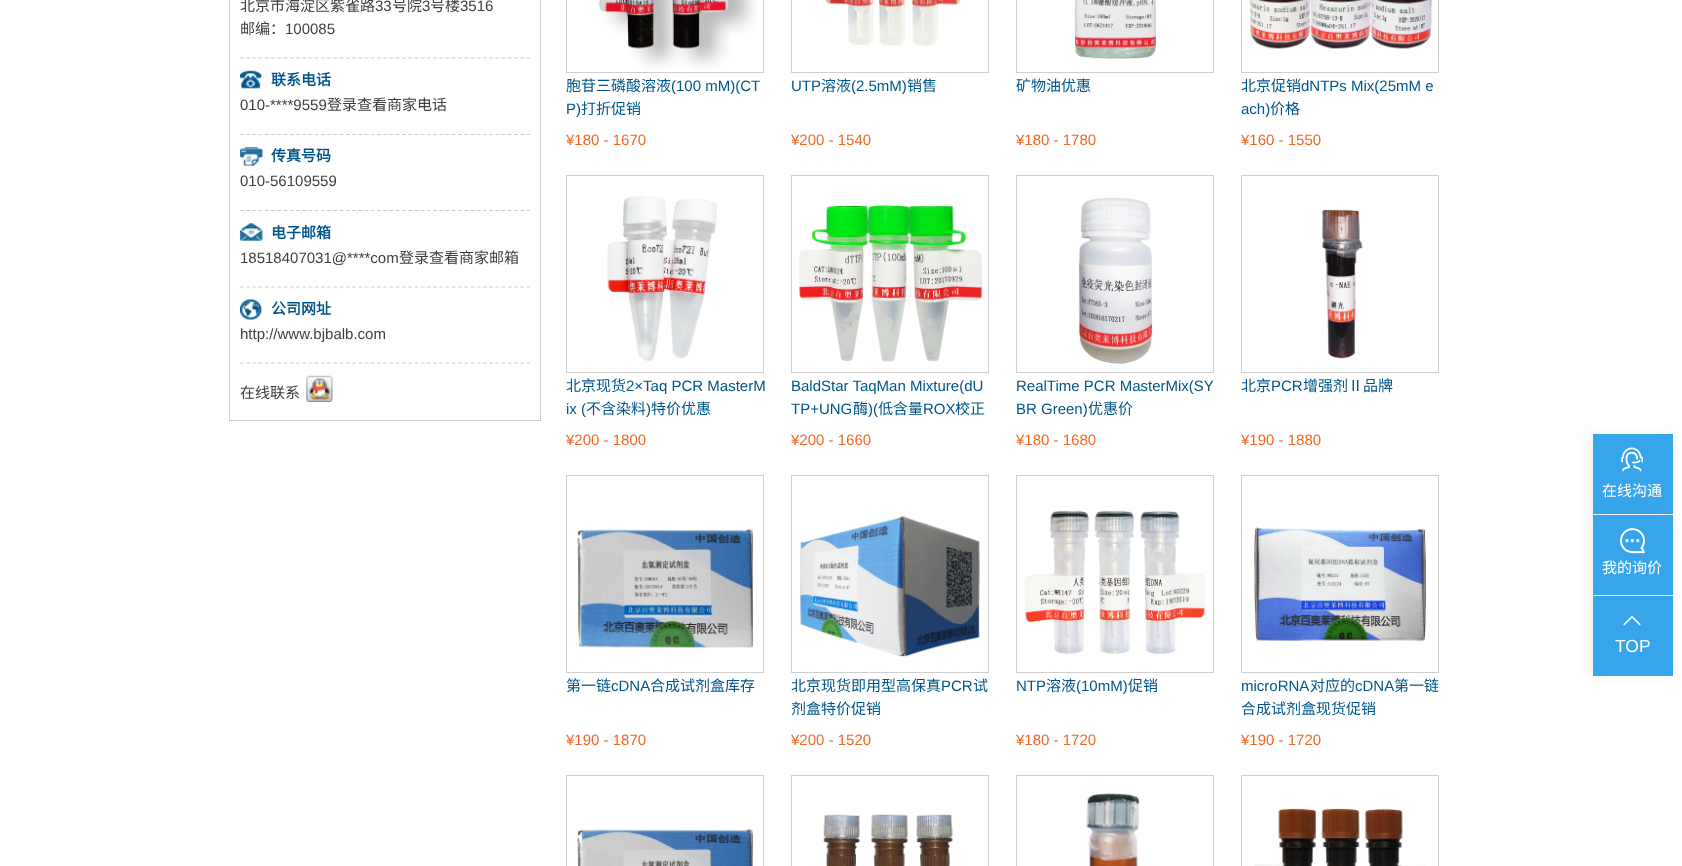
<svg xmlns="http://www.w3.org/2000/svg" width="1682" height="866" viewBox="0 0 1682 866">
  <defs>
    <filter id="blur1" x="-50%" y="-200%" width="200%" height="500%"><feGaussianBlur stdDeviation="6"/></filter>
  </defs>
  <rect width="100%" height="100%" fill="#ffffff"/>
  <rect x="540" y="0" width="1" height="421" fill="#cdcdcd"/>
  <rect x="229" y="420" width="312" height="1" fill="#cdcdcd"/>
  <rect x="229" y="0" width="1" height="421" fill="#cdcdcd"/>
  <path d="M240 58H530" fill="none" stroke="#cdcdcd" stroke-width="1.2" stroke-dasharray="3.75 2.48"/>
  <text x="240" y="11" font-family="Noto Sans CJK SC" font-size="15" fill="#3e3e3e">北京市海淀区紫雀路</text>
  <text x="375" y="11" font-family="Liberation Sans" font-size="15" fill="#3e3e3e">33</text>
  <text x="392" y="11" font-family="Noto Sans CJK SC" font-size="15" fill="#3e3e3e">号院</text>
  <text x="422" y="11" font-family="Liberation Sans" font-size="15" fill="#3e3e3e">3</text>
  <text x="430" y="11" font-family="Noto Sans CJK SC" font-size="15" fill="#3e3e3e">号楼</text>
  <text x="460" y="11" font-family="Liberation Sans" font-size="15" fill="#3e3e3e">3516</text>
  <text x="240" y="34" font-family="Noto Sans CJK SC" font-size="15" fill="#3e3e3e">邮编：</text>
  <text x="285" y="34" font-family="Liberation Sans" font-size="15" fill="#3e3e3e">100085</text>
  <path d="M240 134.5H530" fill="none" stroke="#cdcdcd" stroke-width="1.2" stroke-dasharray="3.75 2.48"/>
  <image x="240" y="70" width="22" height="19" href="img1.png"/>
  <text x="271" y="85" font-family="Noto Sans CJK SC" font-size="15" font-weight="bold" fill="#00568b">联系电话</text>
  <text x="240" y="110" font-family="Liberation Sans" font-size="15" fill="#3e3e3e">010-****9559</text>
  <text x="327" y="110" font-family="Noto Sans CJK SC" font-size="15" fill="#3e3e3e">登录查看商家电话</text>
  <path d="M240 210.5H530" fill="none" stroke="#cdcdcd" stroke-width="1.2" stroke-dasharray="3.75 2.48"/>
  <image x="240" y="147" width="23" height="19" href="img2.png"/>
  <text x="271" y="161" font-family="Noto Sans CJK SC" font-size="15" font-weight="bold" fill="#00568b">传真号码</text>
  <text x="240" y="186" font-family="Liberation Sans" font-size="15" fill="#3e3e3e">010-56109559</text>
  <path d="M240 287H530" fill="none" stroke="#cdcdcd" stroke-width="1.2" stroke-dasharray="3.75 2.48"/>
  <image x="240" y="223" width="23" height="18" href="img3.png"/>
  <text x="271" y="238" font-family="Noto Sans CJK SC" font-size="15" font-weight="bold" fill="#00568b">电子邮箱</text>
  <text x="240" y="263" font-family="Liberation Sans" font-size="15" fill="#3e3e3e">18518407031@****com</text>
  <text x="399" y="263" font-family="Noto Sans CJK SC" font-size="15" fill="#3e3e3e">登录查看商家邮箱</text>
  <path d="M240 363H530" fill="none" stroke="#cdcdcd" stroke-width="1.2" stroke-dasharray="3.75 2.48"/>
  <image x="240" y="299" width="22" height="21" href="img4.png"/>
  <text x="271" y="314" font-family="Noto Sans CJK SC" font-size="15" font-weight="bold" fill="#00568b">公司网址</text>
  <text x="240" y="339" font-family="Liberation Sans" font-size="15" fill="#3e3e3e">http://www.bjbalb.com</text>
  <text x="240" y="398" font-family="Noto Sans CJK SC" font-size="15" fill="#3e3e3e">在线联系</text>
  <image x="306" y="375" width="27" height="27" href="img5.png"/>
  <rect x="566.5" y="-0.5" width="197" height="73" fill="none" stroke="#cfcfcf"/>
  <image x="598" y="0" width="160" height="70" href="img6.png"/>
  <text x="566" y="91" font-family="Noto Sans CJK SC" font-size="15" fill="#00568b">胞苷三磷酸溶液</text>
  <text x="671" y="91" font-family="Liberation Sans" font-size="15" fill="#00568b">(100 mM)(CT</text>
  <text x="566" y="114" font-family="Liberation Sans" font-size="15" fill="#00568b">P)</text>
  <text x="581" y="114" font-family="Noto Sans CJK SC" font-size="15" fill="#00568b">打折促销</text>
  <text x="566" y="145" font-family="Liberation Sans" font-size="15" fill="#f16623">¥180 - 1670</text>
  <rect x="791.5" y="-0.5" width="197" height="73" fill="none" stroke="#cfcfcf"/>
  <image x="825" y="0" width="136" height="46" href="img7.png"/>
  <text x="791" y="91" font-family="Liberation Sans" font-size="15" fill="#00568b">UTP</text>
  <text x="821" y="91" font-family="Noto Sans CJK SC" font-size="15" fill="#00568b">溶液</text>
  <text x="851" y="91" font-family="Liberation Sans" font-size="15" fill="#00568b">(2.5mM)</text>
  <text x="907" y="91" font-family="Noto Sans CJK SC" font-size="15" fill="#00568b">销售</text>
  <text x="791" y="145" font-family="Liberation Sans" font-size="15" fill="#f16623">¥200 - 1540</text>
  <rect x="1016.5" y="-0.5" width="197" height="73" fill="none" stroke="#cfcfcf"/>
  <image x="1074" y="0" width="82" height="59" href="img8.png"/>
  <text x="1016" y="91" font-family="Noto Sans CJK SC" font-size="15" fill="#00568b">矿物油优惠</text>
  <text x="1016" y="145" font-family="Liberation Sans" font-size="15" fill="#f16623">¥180 - 1780</text>
  <rect x="1241.5" y="-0.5" width="197" height="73" fill="none" stroke="#cfcfcf"/>
  <image x="1249" y="0" width="183" height="49" href="img9.png"/>
  <text x="1241" y="91" font-family="Noto Sans CJK SC" font-size="15" fill="#00568b">北京促销</text>
  <text x="1301" y="91" font-family="Liberation Sans" font-size="15" fill="#00568b">dNTPs Mix(25mM e</text>
  <text x="1241" y="114" font-family="Liberation Sans" font-size="15" fill="#00568b">ach)</text>
  <text x="1270" y="114" font-family="Noto Sans CJK SC" font-size="15" fill="#00568b">价格</text>
  <text x="1241" y="145" font-family="Liberation Sans" font-size="15" fill="#f16623">¥160 - 1550</text>
  <rect x="566.5" y="175.5" width="197" height="197" fill="none" stroke="#cfcfcf"/>
  <image x="607" y="196" width="110" height="165" href="img10.png"/>
  <text x="566" y="391" font-family="Noto Sans CJK SC" font-size="15" fill="#00568b">北京现货</text>
  <text x="626" y="391" font-family="Liberation Sans" font-size="15" fill="#00568b">2×Taq PCR MasterM</text>
  <text x="566" y="414" font-family="Liberation Sans" font-size="15" fill="#00568b">ix (</text>
  <text x="586" y="414" font-family="Noto Sans CJK SC" font-size="15" fill="#00568b">不含染料</text>
  <text x="646" y="414" font-family="Liberation Sans" font-size="15" fill="#00568b">)</text>
  <text x="651" y="414" font-family="Noto Sans CJK SC" font-size="15" fill="#00568b">特价优惠</text>
  <text x="566" y="445" font-family="Liberation Sans" font-size="15" fill="#f16623">¥200 - 1800</text>
  <rect x="791.5" y="175.5" width="197" height="197" fill="none" stroke="#cfcfcf"/>
  <image x="799" y="203" width="184" height="159" href="img11.png"/>
  <text x="791" y="391" font-family="Liberation Sans" font-size="15" fill="#00568b">BaldStar TaqMan Mixture(dU</text>
  <text x="791" y="414" font-family="Liberation Sans" font-size="15" fill="#00568b">TP+UNG</text>
  <text x="853" y="414" font-family="Noto Sans CJK SC" font-size="15" fill="#00568b">酶</text>
  <text x="868" y="414" font-family="Liberation Sans" font-size="15" fill="#00568b">)(</text>
  <text x="878" y="414" font-family="Noto Sans CJK SC" font-size="15" fill="#00568b">低含量</text>
  <text x="923" y="414" font-family="Liberation Sans" font-size="15" fill="#00568b">ROX</text>
  <text x="955" y="414" font-family="Noto Sans CJK SC" font-size="15" fill="#00568b">校正</text>
  <text x="791" y="445" font-family="Liberation Sans" font-size="15" fill="#f16623">¥200 - 1660</text>
  <rect x="1016.5" y="175.5" width="197" height="197" fill="none" stroke="#cfcfcf"/>
  <image x="1078" y="197" width="75" height="167" href="img12.png"/>
  <text x="1016" y="391" font-family="Liberation Sans" font-size="15" fill="#00568b">RealTime PCR MasterMix(SY</text>
  <text x="1016" y="414" font-family="Liberation Sans" font-size="15" fill="#00568b">BR Green)</text>
  <text x="1088" y="414" font-family="Noto Sans CJK SC" font-size="15" fill="#00568b">优惠价</text>
  <text x="1016" y="445" font-family="Liberation Sans" font-size="15" fill="#f16623">¥180 - 1680</text>
  <rect x="1241.5" y="175.5" width="197" height="197" fill="none" stroke="#cfcfcf"/>
  <image x="1322" y="209" width="41" height="150" href="img13.png"/>
  <text x="1241" y="391" font-family="Noto Sans CJK SC" font-size="15" fill="#00568b">北京</text>
  <text x="1271" y="391" font-family="Liberation Sans" font-size="15" fill="#00568b">PCR</text>
  <text x="1303" y="391" font-family="Noto Sans CJK SC" font-size="15" fill="#00568b">增强剂Ⅱ品牌</text>
  <text x="1241" y="445" font-family="Liberation Sans" font-size="15" fill="#f16623">¥190 - 1880</text>
  <rect x="566.5" y="475.5" width="197" height="197" fill="none" stroke="#cfcfcf"/>
  <image x="577" y="529" width="176" height="119" href="img14.png"/>
  <text x="566" y="691" font-family="Noto Sans CJK SC" font-size="15" fill="#00568b">第一链</text>
  <text x="611" y="691" font-family="Liberation Sans" font-size="15" fill="#00568b">cDNA</text>
  <text x="650" y="691" font-family="Noto Sans CJK SC" font-size="15" fill="#00568b">合成试剂盒库存</text>
  <text x="566" y="745" font-family="Liberation Sans" font-size="15" fill="#f16623">¥190 - 1870</text>
  <rect x="791.5" y="475.5" width="197" height="197" fill="none" stroke="#cfcfcf"/>
  <image x="800" y="515" width="180" height="142" href="img15.png"/>
  <text x="791" y="691" font-family="Noto Sans CJK SC" font-size="15" fill="#00568b">北京现货即用型高保真</text>
  <text x="941" y="691" font-family="Liberation Sans" font-size="15" fill="#00568b">PCR</text>
  <text x="973" y="691" font-family="Noto Sans CJK SC" font-size="15" fill="#00568b">试</text>
  <text x="791" y="714" font-family="Noto Sans CJK SC" font-size="15" fill="#00568b">剂盒特价促销</text>
  <text x="791" y="745" font-family="Liberation Sans" font-size="15" fill="#f16623">¥200 - 1520</text>
  <rect x="1016.5" y="475.5" width="197" height="197" fill="none" stroke="#cfcfcf"/>
  <image x="1024" y="510" width="182" height="145" href="img16.png"/>
  <text x="1016" y="691" font-family="Liberation Sans" font-size="15" fill="#00568b">NTP</text>
  <text x="1046" y="691" font-family="Noto Sans CJK SC" font-size="15" fill="#00568b">溶液</text>
  <text x="1076" y="691" font-family="Liberation Sans" font-size="15" fill="#00568b">(10mM)</text>
  <text x="1128" y="691" font-family="Noto Sans CJK SC" font-size="15" fill="#00568b">促销</text>
  <text x="1016" y="745" font-family="Liberation Sans" font-size="15" fill="#f16623">¥180 - 1720</text>
  <rect x="1241.5" y="475.5" width="197" height="197" fill="none" stroke="#cfcfcf"/>
  <image x="1254" y="527" width="173" height="115" href="img17.png"/>
  <text x="1241" y="691" font-family="Liberation Sans" font-size="15" fill="#00568b">microRNA</text>
  <text x="1310" y="691" font-family="Noto Sans CJK SC" font-size="15" fill="#00568b">对应的</text>
  <text x="1355" y="691" font-family="Liberation Sans" font-size="15" fill="#00568b">cDNA</text>
  <text x="1394" y="691" font-family="Noto Sans CJK SC" font-size="15" fill="#00568b">第一链</text>
  <text x="1241" y="714" font-family="Noto Sans CJK SC" font-size="15" fill="#00568b">合成试剂盒现货促销</text>
  <text x="1241" y="745" font-family="Liberation Sans" font-size="15" fill="#f16623">¥190 - 1720</text>
  <rect x="566.5" y="775.5" width="197" height="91" fill="none" stroke="#cfcfcf"/>
  <image x="577" y="829" width="176" height="37" href="img18.png"/>
  <rect x="791.5" y="775.5" width="197" height="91" fill="none" stroke="#cfcfcf"/>
  <image x="823" y="814" width="130" height="52" href="img19.png"/>
  <rect x="1016.5" y="775.5" width="197" height="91" fill="none" stroke="#cfcfcf"/>
  <image x="1086" y="793" width="54" height="73" href="img20.png"/>
  <rect x="1241.5" y="775.5" width="197" height="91" fill="none" stroke="#cfcfcf"/>
  <image x="1254" y="808" width="171" height="58" href="img21.png"/>
  <rect x="1588" y="434" width="80" height="80" fill="#000000" fill-opacity="0.05" filter="url(#blur1)"/>
  <rect x="1593" y="434" width="80" height="80" fill="#37a5ec"/>
  <image x="1621" y="447" width="22" height="25" href="img22.png"/>
  <text x="1602" y="496" font-family="Noto Sans CJK SC" font-size="15" fill="#ffffff">在线沟通</text>
  <rect x="1588" y="596" width="80" height="80" fill="#000000" fill-opacity="0.05" filter="url(#blur1)"/>
  <rect x="1593" y="596" width="80" height="80" fill="#37a5ec"/>
  <image x="1623" y="616" width="18" height="10" href="img23.png"/>
  <text x="1615" y="652" font-family="Liberation Sans" font-size="17.5" fill="#ffffff">TOP</text>
  <rect x="1588" y="515" width="80" height="80" fill="#000000" fill-opacity="0.05" filter="url(#blur1)"/>
  <rect x="1593" y="515" width="80" height="80" fill="#37a5ec"/>
  <image x="1620" y="528" width="25" height="26" href="img24.png"/>
  <text x="1602" y="573" font-family="Noto Sans CJK SC" font-size="15" fill="#ffffff">我的询价</text>
</svg>
